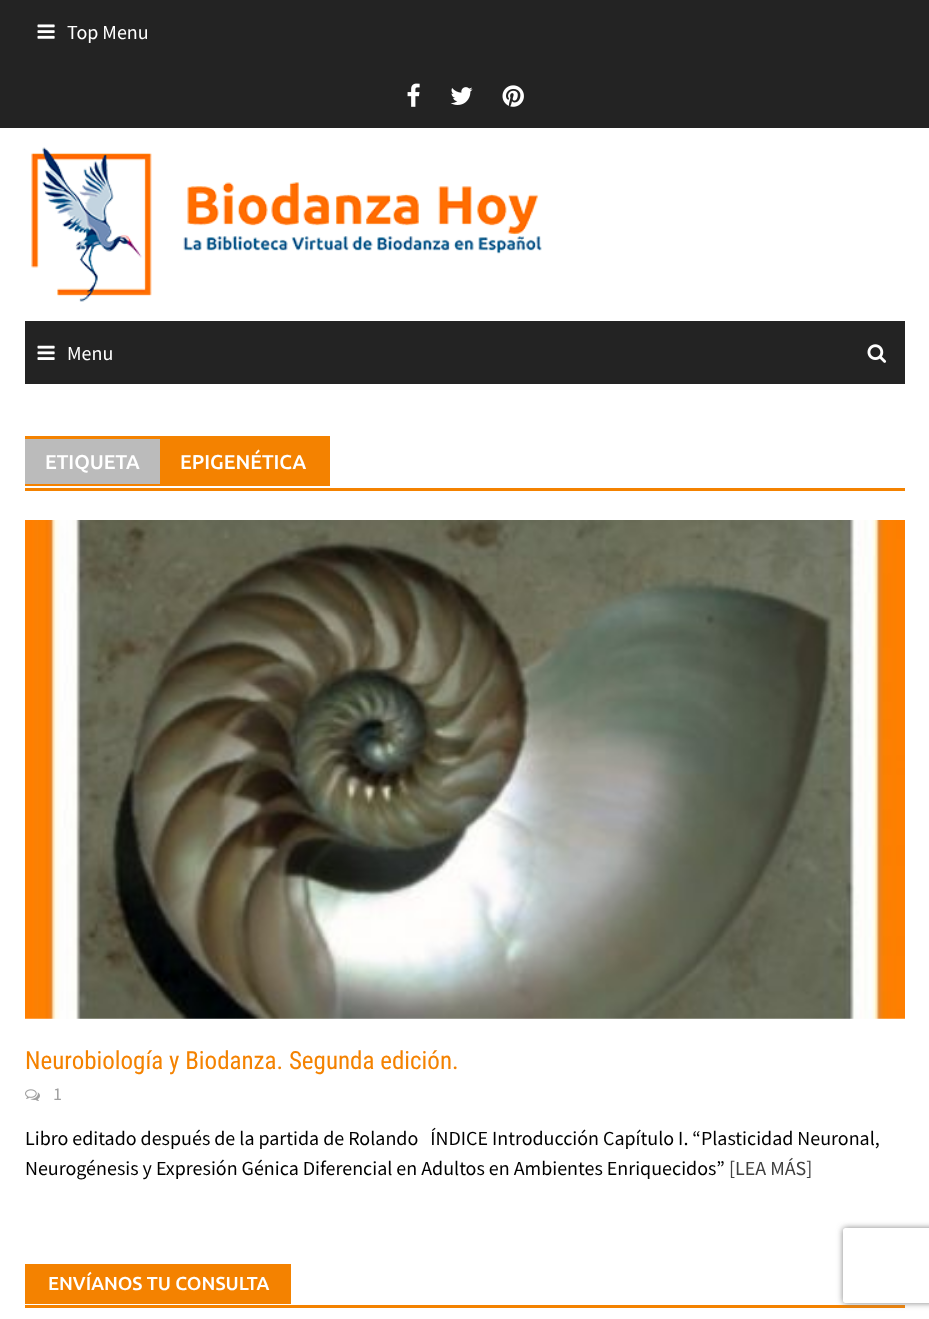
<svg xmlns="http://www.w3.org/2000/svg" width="929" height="1319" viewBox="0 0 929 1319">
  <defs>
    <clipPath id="clip1"><path d="M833 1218H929V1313H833ZM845.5 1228H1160.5C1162 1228 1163 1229 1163 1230.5V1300.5C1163 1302 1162 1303 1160.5 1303H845.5C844 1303 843 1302 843 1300.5V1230.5C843 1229 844 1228 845.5 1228Z" clip-rule="evenodd"/></clipPath>
    <filter id="blur1" x="-50%" y="-200%" width="200%" height="500%"><feGaussianBlur stdDeviation="3"/></filter>
  </defs>
  <rect width="100%" height="100%" fill="#ffffff"/>
  <rect x="0" y="0" width="929" height="128" fill="#232323"/>
  <image x="37" y="24" width="18" height="15" href="img1.png"/>
  <text x="67" y="39" font-family="Source Sans Pro" font-size="20" fill="#ffffff">Top Menu</text>
  <image x="407" y="83" width="13" height="24" href="img2.png"/>
  <image x="450" y="87" width="23" height="18" href="img3.png"/>
  <image x="502" y="85" width="22" height="22" href="img4.png"/>
  <image x="31" y="147" width="511" height="155" href="img5.png"/>
  <rect x="25" y="321" width="880" height="63" fill="#232323"/>
  <image x="37" y="345" width="18" height="15" href="img6.png"/>
  <text x="67" y="360" font-family="Source Sans Pro" font-size="20" fill="#ffffff">Menu</text>
  <image x="867" y="344" width="20" height="19" href="img7.png"/>
  <rect x="25" y="488" width="880" height="3" fill="#f48200"/>
  <rect x="25" y="436" width="305" height="50" fill="#f48200"/>
  <rect x="25" y="439" width="135" height="45" fill="#bbbbbb"/>
  <text x="45" y="469" font-family="Ubuntu" font-size="20" font-weight="500" fill="#ffffff">ETIQUETA</text>
  <text x="180" y="469" font-family="Ubuntu" font-size="20" font-weight="500" fill="#ffffff">EPIGENÉTICA</text>
  <image x="25" y="520" width="880" height="499" href="img8.png"/>
  <text x="25" y="1069" font-family="Roboto Condensed" font-size="25" fill="#f48200">Neurobiología y Biodanza. Segunda edición.</text>
  <image x="25" y="1089" width="15" height="12" href="img9.png"/>
  <text x="53" y="1100" font-family="Source Sans Pro" font-size="18" fill="#9f9f9f">1</text>
  <text x="25" y="1145" font-family="Source Sans Pro" font-size="20" fill="#000000" xml:space="preserve">Libro editado después de la partida de Rolando   ÍNDICE Introducción Capítulo I. “Plasticidad Neuronal,</text>
  <text x="25" y="1175" font-family="Source Sans Pro" font-size="20" fill="#000000">Neurogénesis y Expresión Génica Diferencial en Adultos en Ambientes Enriquecidos”</text>
  <text x="729" y="1175" font-family="Source Sans Pro" font-size="20" fill="#404040">[LEA MÁS]</text>
  <rect x="25" y="1305" width="880" height="3" fill="#f48200"/>
  <rect x="25" y="1264" width="266" height="40" fill="#f48200"/>
  <text x="48" y="1290" font-family="Ubuntu" font-size="18.75" font-weight="500" fill="#ffffff">ENVÍANOS TU CONSULTA</text>
  <g clip-path="url(#clip1)">
    <rect x="843" y="1228" width="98" height="75" rx="2.5" fill="#808080" filter="url(#blur1)"/>
  </g>
</svg>
